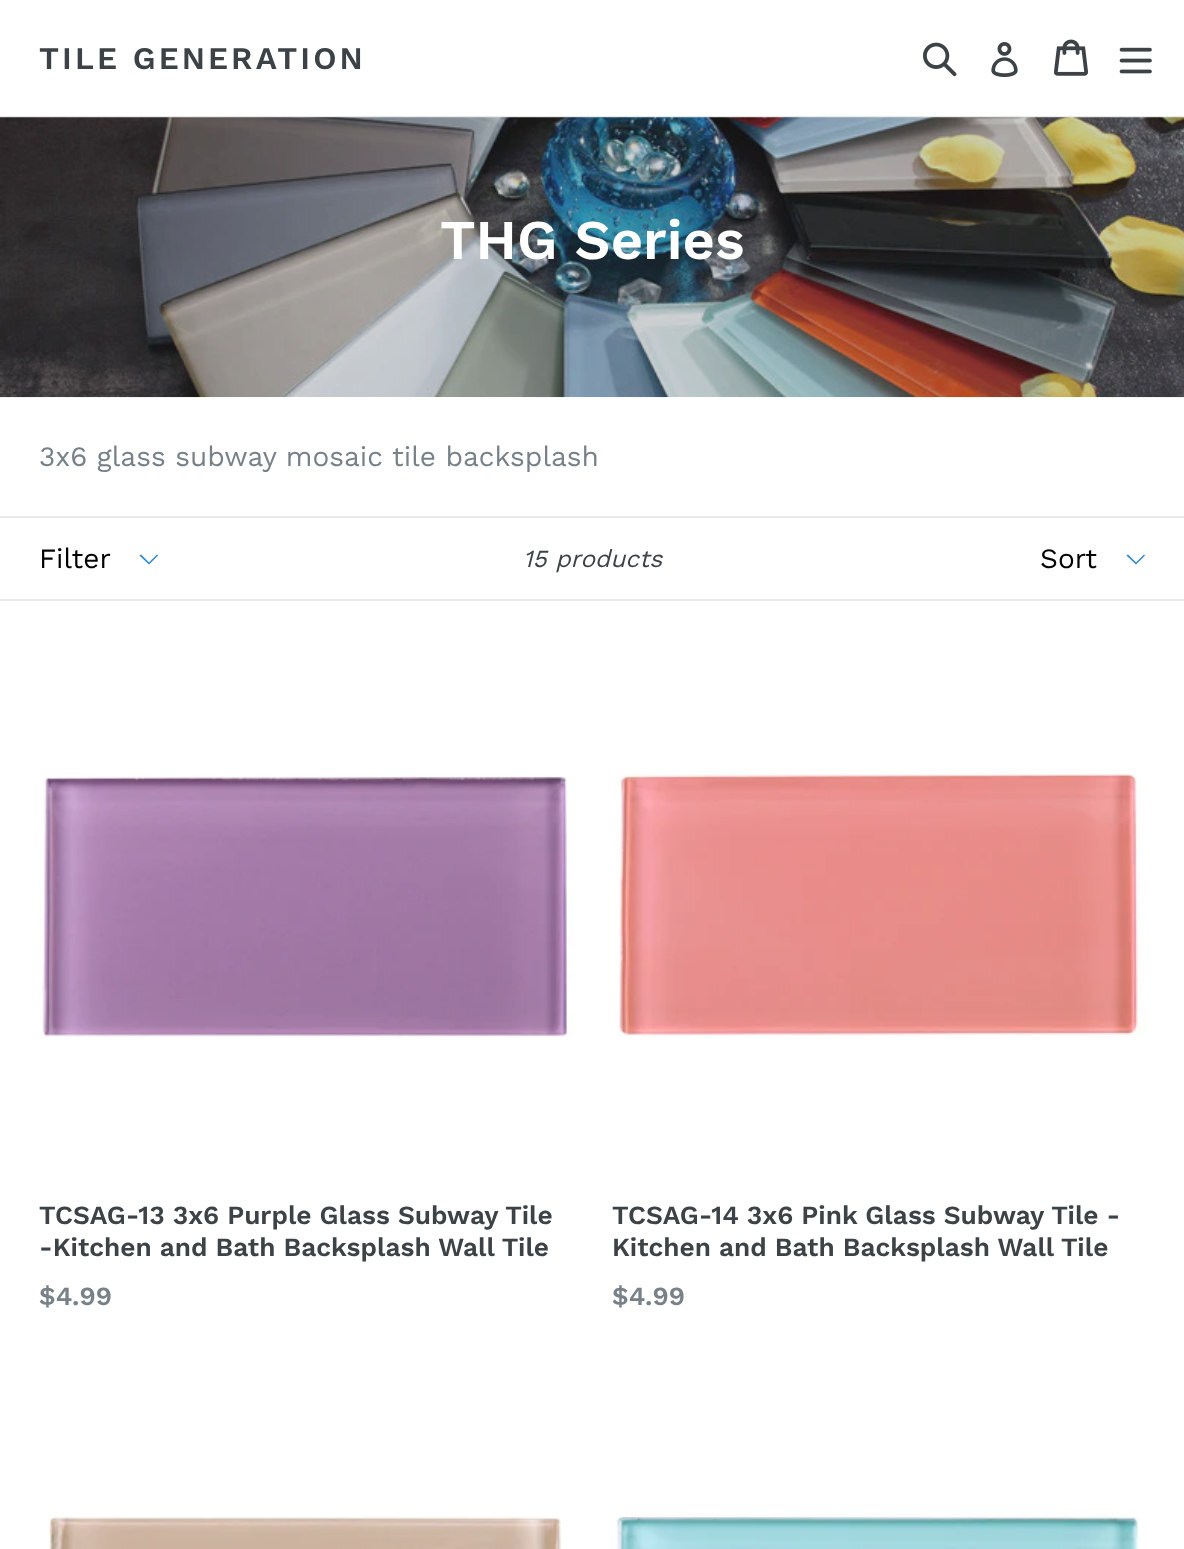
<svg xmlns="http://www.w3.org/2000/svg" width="1184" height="1549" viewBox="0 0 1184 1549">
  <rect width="100%" height="100%" fill="#ffffff"/>
  <rect x="0" y="116" width="1184" height="2" fill="#e8e9eb"/>
  <text x="39" y="69" font-family="Work Sans" font-size="31.5" font-weight="600" letter-spacing="3.1" fill="#3d4246">TILE GENERATION</text>
  <image x="923" y="42" width="34" height="35" href="img1.png"/>
  <image x="991" y="42" width="27" height="35" href="img2.png"/>
  <image x="1054" y="39" width="34" height="37" href="img3.png"/>
  <image x="1119" y="47" width="33" height="27" href="img4.png"/>
  <image x="0" y="117" width="1184" height="281" href="img5.png"/>
  <text x="440" y="259" font-family="Work Sans" font-size="56" font-weight="600" fill="#ffffff">THG Series</text>
  <text x="39" y="466" font-family="Work Sans" font-size="28" fill="#788188">3x6 glass subway mosaic tile backsplash</text>
  <rect x="0" y="516" width="1184" height="2" fill="#e8e9eb"/>
  <rect x="0" y="599" width="1184" height="2" fill="#e8e9eb"/>
  <path d="M149 564.5L139.5 555.5L141 554.5L149 562.5L157 554.5L158 555.5Z" fill="#2985ce"/>
  <text x="39" y="568" font-family="Work Sans" font-size="28" fill="#000000">Filter</text>
  <text x="523" y="567" font-family="Work Sans" font-size="24.5" font-style="italic" fill="#3d4246">15 products</text>
  <path d="M1136 564.5L1126.5 555.5L1128 554.5L1136 562.5L1144 554.5L1145 555.5Z" fill="#2985ce"/>
  <text x="1040" y="568" font-family="Work Sans" font-size="28" fill="#000000">Sort</text>
  <image x="39" y="775" width="535" height="263" href="img6.png"/>
  <text x="39" y="1224" font-family="Work Sans" font-size="26.25" font-weight="600" fill="#3d4246">TCSAG-13 3x6 Purple Glass Subway Tile</text>
  <text x="39" y="1256" font-family="Work Sans" font-size="26.25" font-weight="600" fill="#3d4246">-Kitchen and Bath Backsplash Wall Tile</text>
  <text x="39" y="1305" font-family="Work Sans" font-size="26.25" font-weight="600" fill="#788188">$4.99</text>
  <image x="618" y="770" width="528" height="268" href="img7.png"/>
  <text x="612" y="1224" font-family="Work Sans" font-size="26.25" font-weight="600" fill="#3d4246">TCSAG-14 3x6 Pink Glass Subway Tile -</text>
  <text x="612" y="1256" font-family="Work Sans" font-size="26.25" font-weight="600" fill="#3d4246">Kitchen and Bath Backsplash Wall Tile</text>
  <text x="612" y="1305" font-family="Work Sans" font-size="26.25" font-weight="600" fill="#788188">$4.99</text>
  <image x="49" y="1516" width="513" height="33" href="img8.png"/>
  <image x="616" y="1514" width="523" height="35" href="img9.png"/>
</svg>
